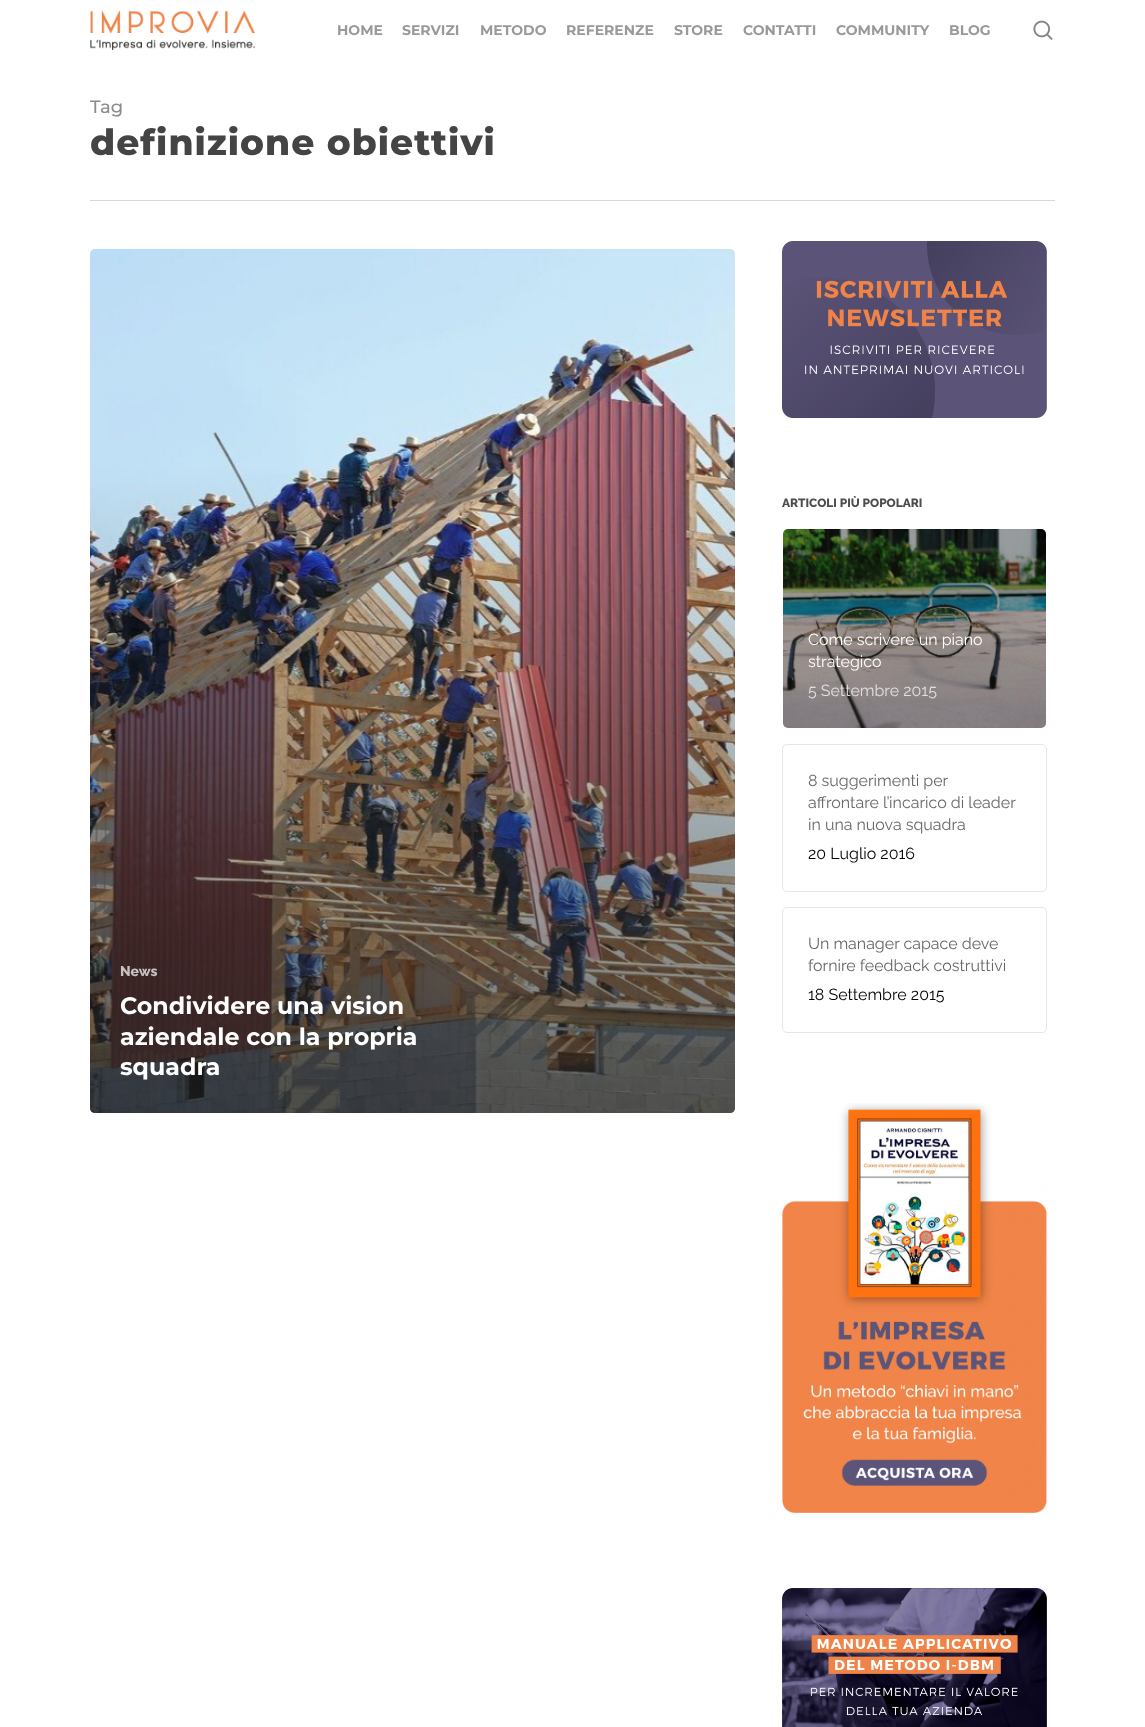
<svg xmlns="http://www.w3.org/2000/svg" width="1145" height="1727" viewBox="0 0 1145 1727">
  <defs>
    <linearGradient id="g1" gradientUnits="userSpaceOnUse" x1="414" y1="466" x2="414" y2="1117"><stop offset="0" stop-color="#232323" stop-opacity="0"/><stop offset="1" stop-color="#232323" stop-opacity="0.65"/></linearGradient>
  </defs>
  <rect width="100%" height="100%" fill="#ffffff"/>
  <image x="90" y="10" width="165" height="40" href="img1.png"/>
  <text x="337" y="35" font-family="Montserrat" font-size="14" font-weight="bold" fill="#999999">HOME</text>
  <text x="402" y="35" font-family="Montserrat" font-size="14" font-weight="bold" fill="#999999">SERVIZI</text>
  <text x="480" y="35" font-family="Montserrat" font-size="14" font-weight="bold" fill="#999999">METODO</text>
  <text x="566" y="35" font-family="Montserrat" font-size="14" font-weight="bold" fill="#999999">REFERENZE</text>
  <text x="674" y="35" font-family="Montserrat" font-size="14" font-weight="bold" fill="#999999">STORE</text>
  <text x="743" y="35" font-family="Montserrat" font-size="14" font-weight="bold" fill="#999999">CONTATTI</text>
  <text x="836" y="35" font-family="Montserrat" font-size="14" font-weight="bold" fill="#999999">COMMUNITY</text>
  <text x="949" y="35" font-family="Montserrat" font-size="14" font-weight="bold" fill="#999999">BLOG</text>
  <image x="1033" y="20" width="20" height="20" href="img2.png"/>
  <rect x="90" y="200" width="965" height="1" fill="#d9d9d9"/>
  <text x="90" y="113" font-family="Montserrat" font-size="18" font-weight="500" fill="#8c8c8c">Tag</text>
  <text x="90" y="155" font-family="Montserrat" font-size="36" font-weight="800" letter-spacing="1" fill="#444444">definizione obiettivi</text>
  <image x="782" y="241" width="265" height="177" href="img3.png"/>
  <text x="782" y="507" font-family="Raleway" font-size="12" font-weight="800" fill="#4d4d4d">ARTICOLI PIÙ POPOLARI</text>
  <image x="783" y="529" width="263" height="199" href="img4.png"/>
  <rect x="783" y="529" width="263" height="199" rx="5" fill="#000000" fill-opacity="0.35"/>
  <text x="808" y="645" font-family="Raleway" font-size="16" fill="#ffffff">Come scrivere un piano</text>
  <text x="808" y="667" font-family="Raleway" font-size="16" fill="#ffffff">strategico</text>
  <text x="808" y="696" font-family="Raleway" font-size="16" fill="#e1dfe0">5 Settembre 2015</text>
  <rect x="782.5" y="744.5" width="264" height="147" rx="4.5" fill="none" stroke="#e6e6e6"/>
  <text x="808" y="786" font-family="Raleway" font-size="16" fill="#676767">8 suggerimenti per</text>
  <text x="808" y="808" font-family="Raleway" font-size="16" fill="#676767">affrontare l’incarico di leader</text>
  <text x="808" y="830" font-family="Raleway" font-size="16" fill="#676767">in una nuova squadra</text>
  <text x="808" y="859" font-family="Raleway" font-size="16" fill="#000000">20 Luglio 2016</text>
  <rect x="782.5" y="907.5" width="264" height="125" rx="4.5" fill="none" stroke="#e6e6e6"/>
  <text x="808" y="949" font-family="Raleway" font-size="16" fill="#676767">Un manager capace deve</text>
  <text x="808" y="971" font-family="Raleway" font-size="16" fill="#676767">fornire feedback costruttivi</text>
  <text x="808" y="1000" font-family="Raleway" font-size="16" fill="#000000">18 Settembre 2015</text>
  <image x="782" y="1103" width="265" height="410" href="img5.png"/>
  <image x="782" y="1588" width="265" height="139" href="img6.png"/>
  <image x="90" y="249" width="645" height="864" href="img7.png"/>
  <path d="M90 466H735V1108C735 1111 733 1113 730 1113H95C92 1113 90 1111 90 1108Z" fill="url(#g1)"/>
  <text x="120" y="976" font-family="Raleway" font-size="14" font-weight="800" fill="#c8c2c2">News</text>
  <text x="120" y="1014" font-family="Montserrat" font-size="23.75" font-weight="bold" fill="#ffffff">Condividere una vision</text>
  <text x="120" y="1045" font-family="Montserrat" font-size="23.75" font-weight="bold" fill="#ffffff">aziendale con la propria</text>
  <text x="120" y="1075" font-family="Montserrat" font-size="23.75" font-weight="bold" fill="#ffffff">squadra</text>
</svg>
